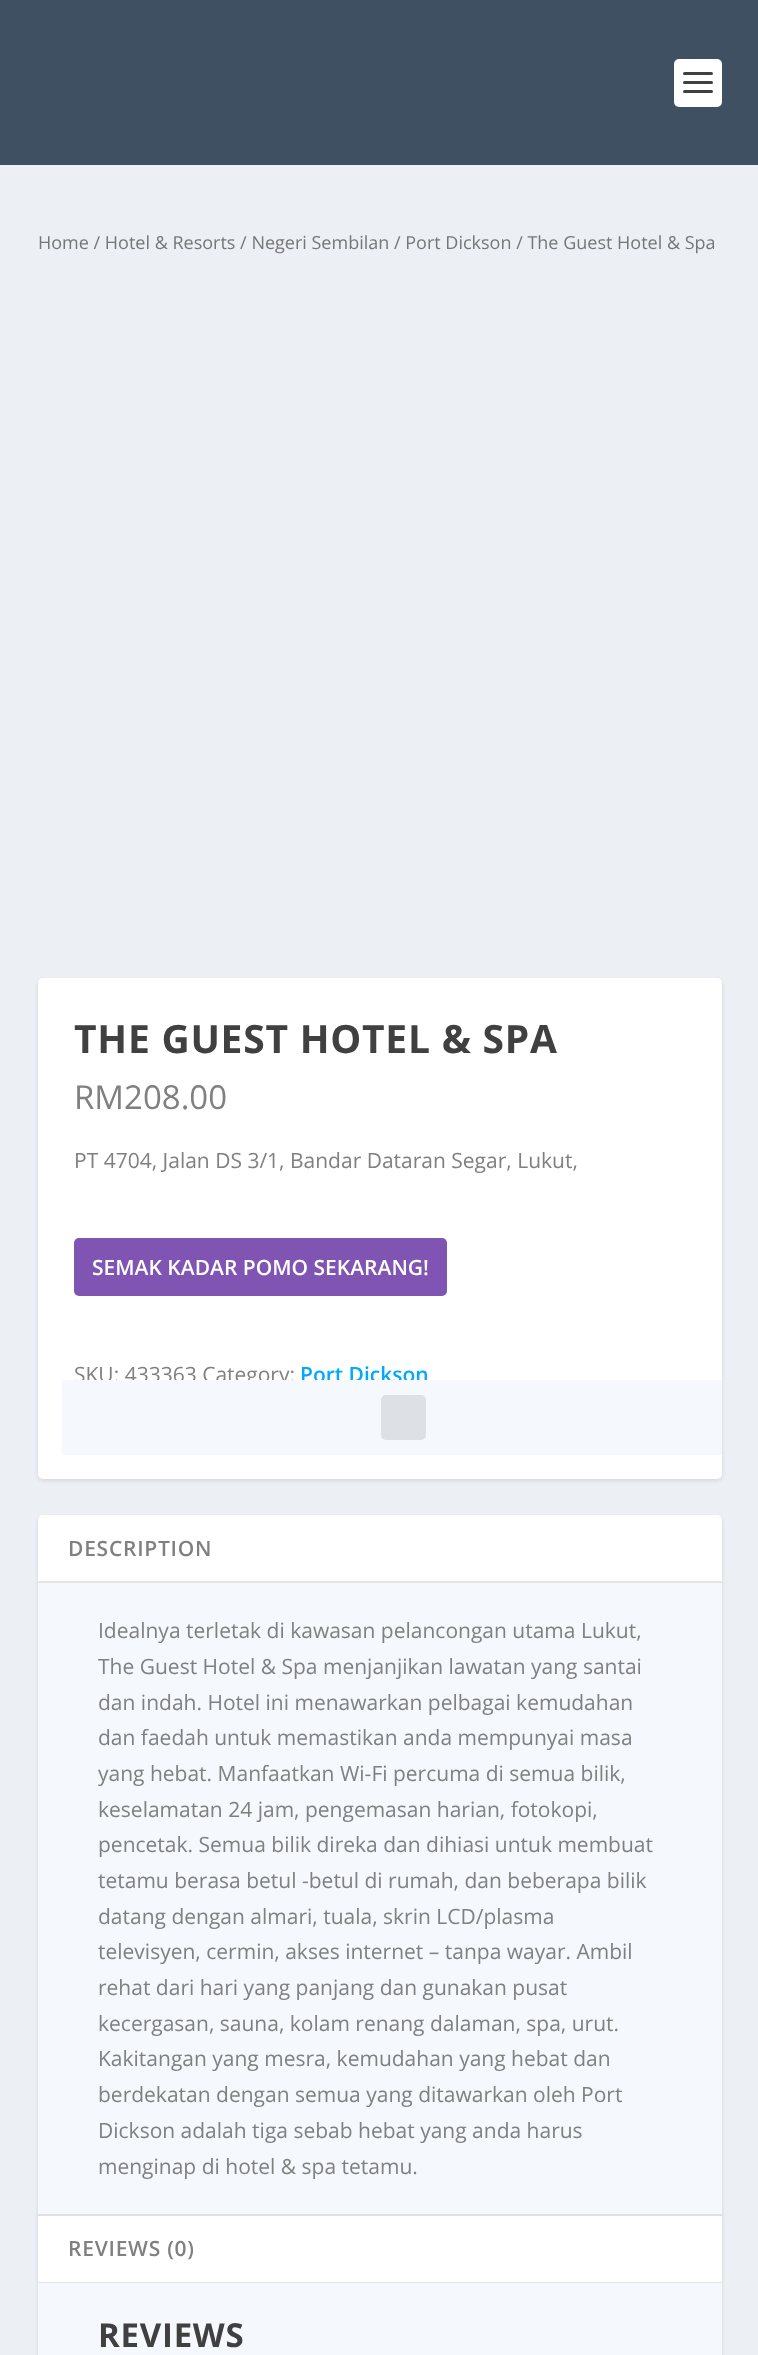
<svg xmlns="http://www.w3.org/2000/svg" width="758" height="2355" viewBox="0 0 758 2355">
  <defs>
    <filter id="blur1" x="-50%" y="-200%" width="200%" height="500%"><feGaussianBlur stdDeviation="2"/></filter>
  </defs>
  <rect width="100%" height="100%" fill="#ecf0f5"/>
  <rect x="0" y="0" width="758" height="165" fill="#3e5062"/>
  <rect x="674" y="59" width="48" height="48" rx="5" fill="#ffffff"/>
  <rect x="683" y="72" width="30" height="3" rx="1.5" fill="#404040"/>
  <rect x="683" y="81" width="30" height="3" rx="1.5" fill="#404040"/>
  <rect x="683" y="90" width="30" height="3" rx="1.5" fill="#404040"/>
  <text x="38" y="249" font-family="Open Sans" font-size="18" fill="#767676">Home / Hotel &amp; Resorts / Negeri Sembilan / Port Dickson / The Guest Hotel &amp; Spa</text>
  <rect x="38" y="980" width="684" height="501" rx="5" fill="#000000" fill-opacity="0.1" filter="url(#blur1)"/>
  <rect x="38" y="978" width="684" height="501" rx="5" fill="#ffffff"/>
  <text x="74" y="1053" font-family="Open Sans" font-size="39" font-weight="bold" letter-spacing="0.75" fill="#404040">THE GUEST HOTEL &amp; SPA</text>
  <text x="74" y="1109" font-family="Open Sans" font-size="33" fill="#808080">RM208.00</text>
  <text x="74" y="1168" font-family="Open Sans" font-size="21" fill="#808080">PT 4704, Jalan DS 3/1, Bandar Dataran Segar, Lukut,</text>
  <rect x="74" y="1238" width="373" height="58" rx="5" fill="#7f54b3"/>
  <text x="92" y="1275" font-family="Open Sans" font-size="21" font-weight="600" fill="#ffffff">SEMAK KADAR POMO SEKARANG!</text>
  <text x="74" y="1382" font-family="Open Sans" font-size="21" fill="#808080">SKU: 433363 Category:</text>
  <text x="300" y="1382" font-family="Open Sans" font-size="21" font-weight="600" fill="#00a8ff">Port Dickson</text>
  <rect x="62" y="1380" width="660" height="75" fill="#f5f9fd"/>
  <rect x="381" y="1395" width="45" height="45" rx="5" fill="#dde0e4"/>
  <rect x="38" y="1517" width="684" height="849" rx="5" fill="#000000" fill-opacity="0.1" filter="url(#blur1)"/>
  <rect x="38" y="1515" width="684" height="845" rx="5" fill="#ffffff"/>
  <rect x="38" y="1581" width="684" height="2" fill="#e6e6e6"/>
  <text x="68" y="1556" font-family="Open Sans" font-size="21" font-weight="600" letter-spacing="0.75" fill="#808080">DESCRIPTION</text>
  <rect x="38" y="1583" width="684" height="631" fill="#f5f9fd"/>
  <rect x="38" y="2214" width="684" height="2" fill="#dde0e4"/>
  <text x="98" y="1638" font-family="Open Sans" font-size="21" fill="#808080">Idealnya terletak di kawasan pelancongan utama Lukut,</text>
  <text x="98" y="1674" font-family="Open Sans" font-size="21" fill="#808080">The Guest Hotel &amp; Spa menjanjikan lawatan yang santai</text>
  <text x="98" y="1710" font-family="Open Sans" font-size="21" fill="#808080">dan indah. Hotel ini menawarkan pelbagai kemudahan</text>
  <text x="98" y="1745" font-family="Open Sans" font-size="21" fill="#808080">dan faedah untuk memastikan anda mempunyai masa</text>
  <text x="98" y="1781" font-family="Open Sans" font-size="21" fill="#808080">yang hebat. Manfaatkan Wi-Fi percuma di semua bilik,</text>
  <text x="98" y="1817" font-family="Open Sans" font-size="21" fill="#808080">keselamatan 24 jam, pengemasan harian, fotokopi,</text>
  <text x="98" y="1852" font-family="Open Sans" font-size="21" fill="#808080">pencetak. Semua bilik direka dan dihiasi untuk membuat</text>
  <text x="98" y="1888" font-family="Open Sans" font-size="21" fill="#808080">tetamu berasa betul -betul di rumah, dan beberapa bilik</text>
  <text x="98" y="1924" font-family="Open Sans" font-size="21" fill="#808080">datang dengan almari, tuala, skrin LCD/plasma</text>
  <text x="98" y="1959" font-family="Open Sans" font-size="21" fill="#808080">televisyen, cermin, akses internet – tanpa wayar. Ambil</text>
  <text x="98" y="1995" font-family="Open Sans" font-size="21" fill="#808080">rehat dari hari yang panjang dan gunakan pusat</text>
  <text x="98" y="2031" font-family="Open Sans" font-size="21" fill="#808080">kecergasan, sauna, kolam renang dalaman, spa, urut.</text>
  <text x="98" y="2066" font-family="Open Sans" font-size="21" fill="#808080">Kakitangan yang mesra, kemudahan yang hebat dan</text>
  <text x="98" y="2102" font-family="Open Sans" font-size="21" fill="#808080">berdekatan dengan semua yang ditawarkan oleh Port</text>
  <text x="98" y="2138" font-family="Open Sans" font-size="21" fill="#808080">Dickson adalah tiga sebab hebat yang anda harus</text>
  <text x="98" y="2174" font-family="Open Sans" font-size="21" fill="#808080">menginap di hotel &amp; spa tetamu.</text>
  <rect x="38" y="2282" width="684" height="1" fill="#e6e6e6"/>
  <text x="68" y="2256" font-family="Open Sans" font-size="21" font-weight="600" letter-spacing="0.75" fill="#808080">REVIEWS (0)</text>
  <rect x="38" y="2283" width="684" height="72" fill="#f5f9fd"/>
  <text x="98" y="2347" font-family="Open Sans" font-size="33" font-weight="bold" letter-spacing="0.75" fill="#404040">REVIEWS</text>
</svg>
